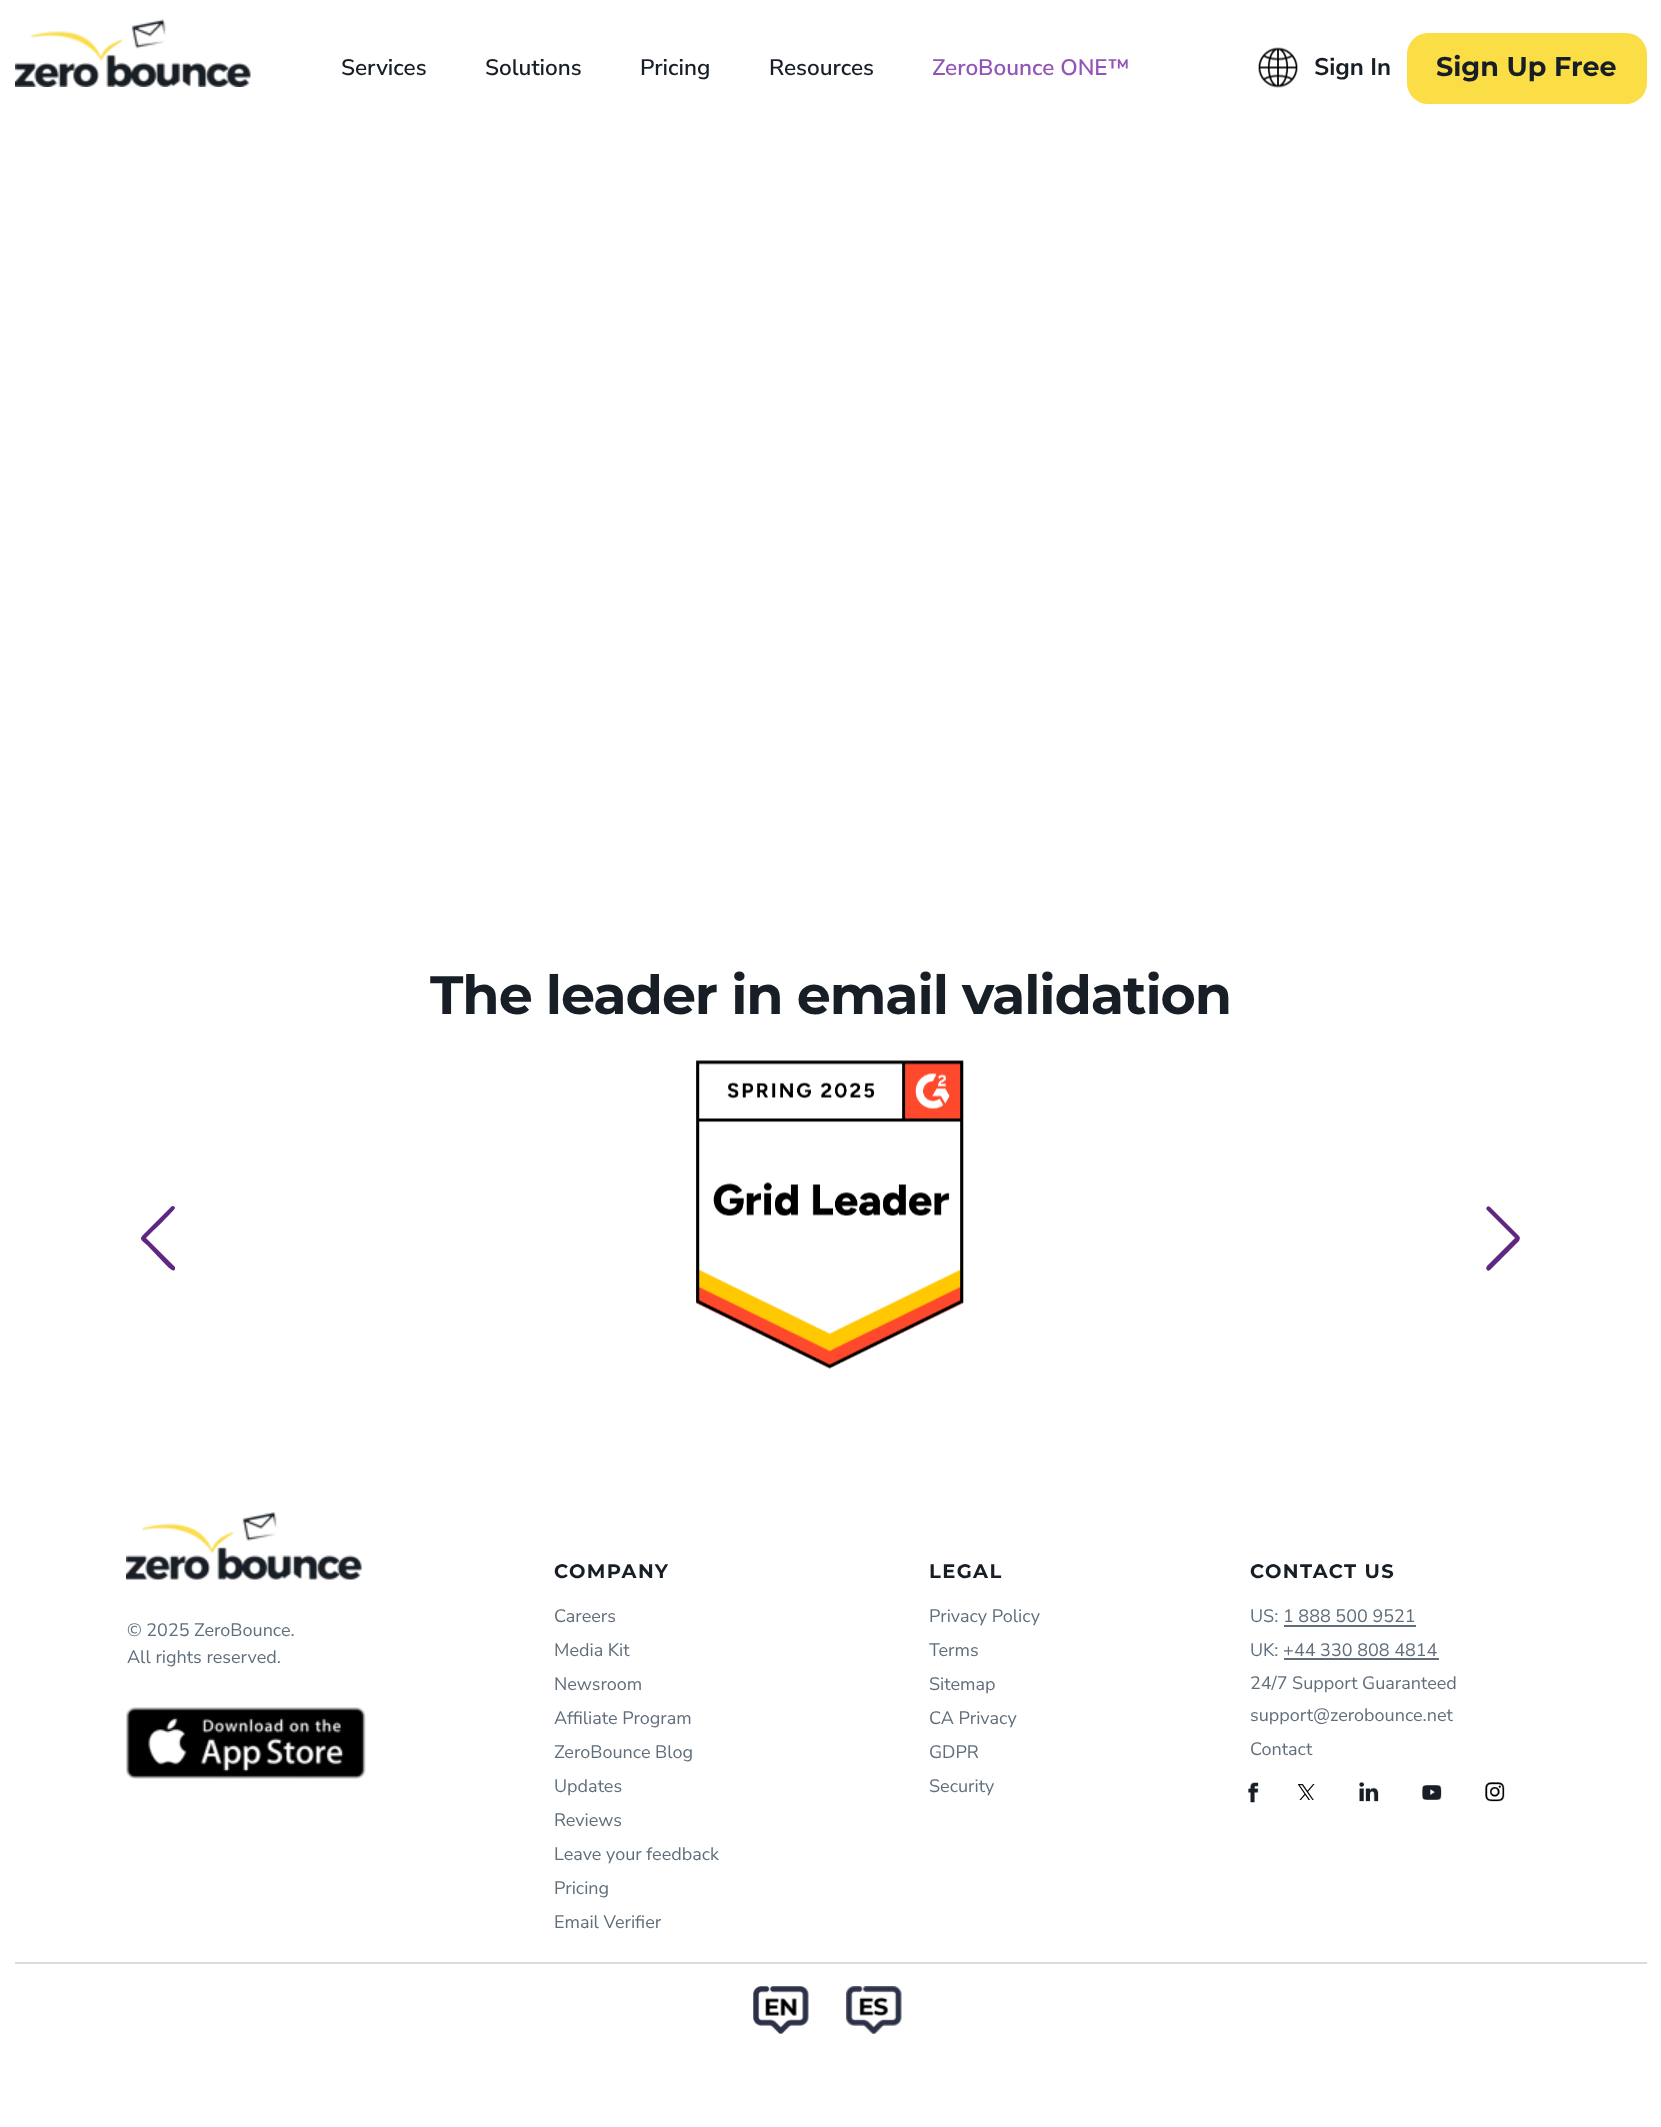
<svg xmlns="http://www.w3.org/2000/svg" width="1661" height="2127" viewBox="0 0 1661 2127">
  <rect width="100%" height="100%" fill="#ffffff"/>
  <image x="15" y="19" width="236" height="68" href="img1.png"/>
  <text x="341" y="75" font-family="Nunito Sans" font-size="22.5" font-weight="600" fill="#171e25">Services</text>
  <text x="485" y="75" font-family="Nunito Sans" font-size="22.5" font-weight="600" fill="#171e25">Solutions</text>
  <text x="640" y="75" font-family="Nunito Sans" font-size="22.5" font-weight="600" fill="#171e25">Pricing</text>
  <text x="769" y="75" font-family="Nunito Sans" font-size="22.5" font-weight="600" fill="#171e25">Resources</text>
  <text x="932" y="75" font-family="Nunito Sans" font-size="22.5" font-weight="600" fill="#9255b7">ZeroBounce ONE™</text>
  <image x="1258" y="47" width="40" height="41" href="img2.png"/>
  <text x="1314" y="75" font-family="Nunito Sans" font-size="24" font-weight="bold" fill="#171e25">Sign In</text>
  <rect x="1407" y="33" width="240" height="71" rx="21" fill="#fbdd46"/>
  <text x="1436" y="76" font-family="Montserrat" font-size="27" font-weight="bold" fill="#171e25">Sign Up Free</text>
  <text x="430" y="1014" font-family="Montserrat" font-size="54" font-weight="bold" letter-spacing="-1.1" fill="#171e25">The leader in email validation</text>
  <path d="M171 1207C172 1205 175 1206 175 1208C175 1210 149 1235 146 1238L175 1267V1269C174 1273 169 1268 166 1265L147 1245C139 1238 139 1239 147 1231Z" fill="#5f2781"/>
  <image x="696" y="1060" width="268" height="309" href="img3.png"/>
  <path d="M1487 1270C1486 1269 1486 1268 1487 1266L1515 1238L1487 1210C1486 1209 1486 1208 1487 1207C1488 1206 1489 1206 1490 1207L1519 1236L1520 1238L1519 1241L1490 1270C1489 1271 1488 1271 1487 1270Z" fill="#5f2781"/>
  <image x="126" y="1512" width="236" height="68" href="img4.png"/>
  <text x="127" y="1636" font-family="Nunito Sans" font-size="18" fill="#606e7b">© 2025 ZeroBounce.</text>
  <text x="127" y="1663" font-family="Nunito Sans" font-size="18" fill="#606e7b">All rights reserved.</text>
  <image x="126" y="1707" width="240" height="72" href="img5.png"/>
  <text x="554" y="1578" font-family="Montserrat" font-size="19.5" font-weight="bold" letter-spacing="1.4" fill="#171e25">COMPANY</text>
  <text x="554" y="1622" font-family="Nunito Sans" font-size="18" fill="#606e7b">Careers</text>
  <text x="554" y="1656" font-family="Nunito Sans" font-size="18" fill="#606e7b">Media Kit</text>
  <text x="554" y="1690" font-family="Nunito Sans" font-size="18" fill="#606e7b">Newsroom</text>
  <text x="554" y="1724" font-family="Nunito Sans" font-size="18" fill="#606e7b">Affiliate Program</text>
  <text x="554" y="1758" font-family="Nunito Sans" font-size="18" fill="#606e7b">ZeroBounce Blog</text>
  <text x="554" y="1792" font-family="Nunito Sans" font-size="18" fill="#606e7b">Updates</text>
  <text x="554" y="1826" font-family="Nunito Sans" font-size="18" fill="#606e7b">Reviews</text>
  <text x="554" y="1860" font-family="Nunito Sans" font-size="18" fill="#606e7b">Leave your feedback</text>
  <text x="554" y="1894" font-family="Nunito Sans" font-size="18" fill="#606e7b">Pricing</text>
  <text x="554" y="1928" font-family="Nunito Sans" font-size="18" fill="#606e7b">Email Verifier</text>
  <text x="929" y="1578" font-family="Montserrat" font-size="19.5" font-weight="bold" letter-spacing="1.4" fill="#171e25">LEGAL</text>
  <text x="929" y="1622" font-family="Nunito Sans" font-size="18" fill="#606e7b">Privacy Policy</text>
  <text x="929" y="1656" font-family="Nunito Sans" font-size="18" fill="#606e7b">Terms</text>
  <text x="929" y="1690" font-family="Nunito Sans" font-size="18" fill="#606e7b">Sitemap</text>
  <text x="929" y="1724" font-family="Nunito Sans" font-size="18" fill="#606e7b">CA Privacy</text>
  <text x="929" y="1758" font-family="Nunito Sans" font-size="18" fill="#606e7b">GDPR</text>
  <text x="929" y="1792" font-family="Nunito Sans" font-size="18" fill="#606e7b">Security</text>
  <text x="1250" y="1578" font-family="Montserrat" font-size="19.5" font-weight="bold" letter-spacing="1.4" fill="#171e25">CONTACT US</text>
  <text x="1250" y="1622" font-family="Nunito Sans" font-size="18" fill="#606e7b">US: 1 888 500 9521</text>
  <rect x="1284" y="1625" width="132" height="2" fill="#606e7b"/>
  <text x="1250" y="1656" font-family="Nunito Sans" font-size="18" fill="#606e7b">UK: +44 330 808 4814</text>
  <rect x="1284" y="1658" width="155" height="2" fill="#606e7b"/>
  <text x="1250" y="1689" font-family="Nunito Sans" font-size="18" fill="#606e7b">24/7 Support Guaranteed</text>
  <text x="1250" y="1721" font-family="Nunito Sans" font-size="18" fill="#606e7b">support@zerobounce.net</text>
  <text x="1250" y="1755" font-family="Nunito Sans" font-size="18" fill="#606e7b">Contact</text>
  <image x="1248" y="1782" width="11" height="21" href="img6.png"/>
  <image x="1298" y="1784" width="17" height="16" href="img7.png"/>
  <image x="1359" y="1782" width="20" height="20" href="img8.png"/>
  <image x="1422" y="1785" width="20" height="15" href="img9.png"/>
  <image x="1485" y="1782" width="20" height="20" href="img10.png"/>
  <rect x="15" y="1962" width="1632" height="2" fill="#dbdbdb"/>
  <image x="753" y="1986" width="56" height="48" href="img11.png"/>
  <image x="846" y="1986" width="56" height="48" href="img12.png"/>
</svg>
